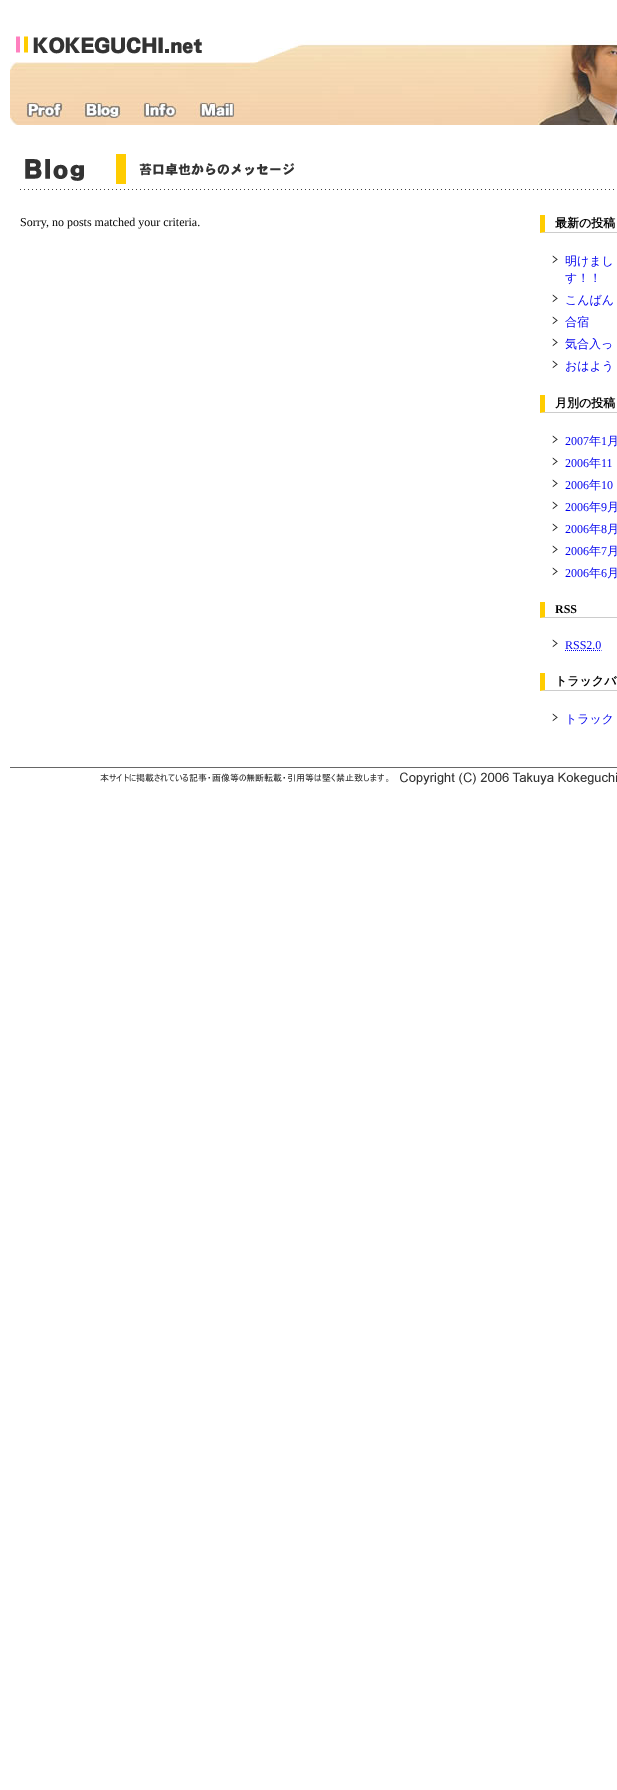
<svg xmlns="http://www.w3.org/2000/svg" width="617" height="1790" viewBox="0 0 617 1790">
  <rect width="100%" height="100%" fill="rgb(255,255,255)"/>
  <image x="258" y="40" width="359" height="22" href="pic1.png"/>
  <image x="16" y="36" width="186" height="18" href="pic2.png"/>
  <image x="10" y="62" width="607" height="63" href="pic3.png"/>
  <image x="20" y="154" width="594" height="36" href="pic4.png"/>
  <text x="20" y="226" font-family="Liberation Serif" font-size="12" fill="rgb(0,0,0)">Sorry, no posts matched your criteria.</text>
  <path d="M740 233H540L545 232H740Z" fill="rgb(204,204,204)"/>
  <path d="M540 233V215H545V232Z" fill="rgb(255,204,0)"/>
  <text x="555" y="227" font-family="WenQuanYi Zen Hei" font-size="12" font-weight="bold" fill="rgb(0,0,0)">最新の投稿</text>
  <image x="552" y="255" width="6" height="9" href="pic5.png"/>
  <g font-family="WenQuanYi Zen Hei" font-size="12" font-weight="500" fill="rgb(0,0,238)">
    <text>
      <tspan x="565" y="265">明けまし</tspan>
      <tspan x="565" y="282">す！！</tspan>
    </text>
  </g>
  <image x="552" y="294" width="6" height="9" href="pic5.png"/>
  <text x="565" y="304" font-family="WenQuanYi Zen Hei" font-size="12" font-weight="500" fill="rgb(0,0,238)">こんばん</text>
  <image x="552" y="316" width="6" height="9" href="pic5.png"/>
  <text x="565" y="326" font-family="WenQuanYi Zen Hei" font-size="12" font-weight="500" fill="rgb(0,0,238)">合宿</text>
  <image x="552" y="338" width="6" height="9" href="pic5.png"/>
  <text x="565" y="348" font-family="WenQuanYi Zen Hei" font-size="12" font-weight="500" fill="rgb(0,0,238)">気合入っ</text>
  <image x="552" y="360" width="6" height="9" href="pic5.png"/>
  <text x="565" y="370" font-family="WenQuanYi Zen Hei" font-size="12" font-weight="500" fill="rgb(0,0,238)">おはよう</text>
  <path d="M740 413H540L545 412H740Z" fill="rgb(204,204,204)"/>
  <path d="M540 413V395H545V412Z" fill="rgb(255,204,0)"/>
  <text x="555" y="407" font-family="WenQuanYi Zen Hei" font-size="12" font-weight="bold" fill="rgb(0,0,0)">月別の投稿</text>
  <image x="552" y="435" width="6" height="9" href="pic5.png"/>
  <text x="565" y="445" font-family="Liberation Serif" font-size="12" fill="rgb(0,0,238)">2007</text>
  <text x="589" y="445" font-family="WenQuanYi Zen Hei" font-size="12" font-weight="500" fill="rgb(0,0,238)">年</text>
  <text x="601" y="445" font-family="Liberation Serif" font-size="12" fill="rgb(0,0,238)">1</text>
  <text x="607" y="445" font-family="WenQuanYi Zen Hei" font-size="12" font-weight="500" fill="rgb(0,0,238)">月</text>
  <image x="552" y="457" width="6" height="9" href="pic5.png"/>
  <text x="565" y="467" font-family="Liberation Serif" font-size="12" fill="rgb(0,0,238)">2006</text>
  <text x="589" y="467" font-family="WenQuanYi Zen Hei" font-size="12" font-weight="500" fill="rgb(0,0,238)">年</text>
  <text x="601" y="467" font-family="Liberation Serif" font-size="12" fill="rgb(0,0,238)">11</text>
  <image x="552" y="479" width="6" height="9" href="pic5.png"/>
  <text x="565" y="489" font-family="Liberation Serif" font-size="12" fill="rgb(0,0,238)">2006</text>
  <text x="589" y="489" font-family="WenQuanYi Zen Hei" font-size="12" font-weight="500" fill="rgb(0,0,238)">年</text>
  <text x="601" y="489" font-family="Liberation Serif" font-size="12" fill="rgb(0,0,238)">10</text>
  <image x="552" y="501" width="6" height="9" href="pic5.png"/>
  <text x="565" y="511" font-family="Liberation Serif" font-size="12" fill="rgb(0,0,238)">2006</text>
  <text x="589" y="511" font-family="WenQuanYi Zen Hei" font-size="12" font-weight="500" fill="rgb(0,0,238)">年</text>
  <text x="601" y="511" font-family="Liberation Serif" font-size="12" fill="rgb(0,0,238)">9</text>
  <text x="607" y="511" font-family="WenQuanYi Zen Hei" font-size="12" font-weight="500" fill="rgb(0,0,238)">月</text>
  <image x="552" y="523" width="6" height="9" href="pic5.png"/>
  <text x="565" y="533" font-family="Liberation Serif" font-size="12" fill="rgb(0,0,238)">2006</text>
  <text x="589" y="533" font-family="WenQuanYi Zen Hei" font-size="12" font-weight="500" fill="rgb(0,0,238)">年</text>
  <text x="601" y="533" font-family="Liberation Serif" font-size="12" fill="rgb(0,0,238)">8</text>
  <text x="607" y="533" font-family="WenQuanYi Zen Hei" font-size="12" font-weight="500" fill="rgb(0,0,238)">月</text>
  <image x="552" y="545" width="6" height="9" href="pic5.png"/>
  <text x="565" y="555" font-family="Liberation Serif" font-size="12" fill="rgb(0,0,238)">2006</text>
  <text x="589" y="555" font-family="WenQuanYi Zen Hei" font-size="12" font-weight="500" fill="rgb(0,0,238)">年</text>
  <text x="601" y="555" font-family="Liberation Serif" font-size="12" fill="rgb(0,0,238)">7</text>
  <text x="607" y="555" font-family="WenQuanYi Zen Hei" font-size="12" font-weight="500" fill="rgb(0,0,238)">月</text>
  <image x="552" y="567" width="6" height="9" href="pic5.png"/>
  <text x="565" y="577" font-family="Liberation Serif" font-size="12" fill="rgb(0,0,238)">2006</text>
  <text x="589" y="577" font-family="WenQuanYi Zen Hei" font-size="12" font-weight="500" fill="rgb(0,0,238)">年</text>
  <text x="601" y="577" font-family="Liberation Serif" font-size="12" fill="rgb(0,0,238)">6</text>
  <text x="607" y="577" font-family="WenQuanYi Zen Hei" font-size="12" font-weight="500" fill="rgb(0,0,238)">月</text>
  <path d="M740 618H540L545 617H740Z" fill="rgb(204,204,204)"/>
  <path d="M540 618V602H545V617Z" fill="rgb(255,204,0)"/>
  <text x="555" y="613" font-family="Liberation Serif" font-size="12" font-weight="bold" fill="rgb(0,0,0)">RSS</text>
  <image x="552" y="639" width="6" height="9" href="pic5.png"/>
  <text x="565" y="649" font-family="Liberation Serif" font-size="12" fill="rgb(0,0,238)">RSS2.0</text>
  <path d="M565 650.5H601.5" fill="none" stroke="rgb(0,0,238)" stroke-dasharray="1 1"/>
  <path d="M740 691H540L545 690H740Z" fill="rgb(204,204,204)"/>
  <path d="M540 691V673H545V690Z" fill="rgb(255,204,0)"/>
  <text x="555" y="685" font-family="WenQuanYi Zen Hei" font-size="12" font-weight="bold" fill="rgb(0,0,0)">トラックバ</text>
  <image x="552" y="713" width="6" height="9" href="pic5.png"/>
  <text x="565" y="723" font-family="WenQuanYi Zen Hei" font-size="12" font-weight="500" fill="rgb(0,0,238)">トラック</text>
  <image x="10" y="767" width="607" height="18" href="pic6.png"/>
</svg>
